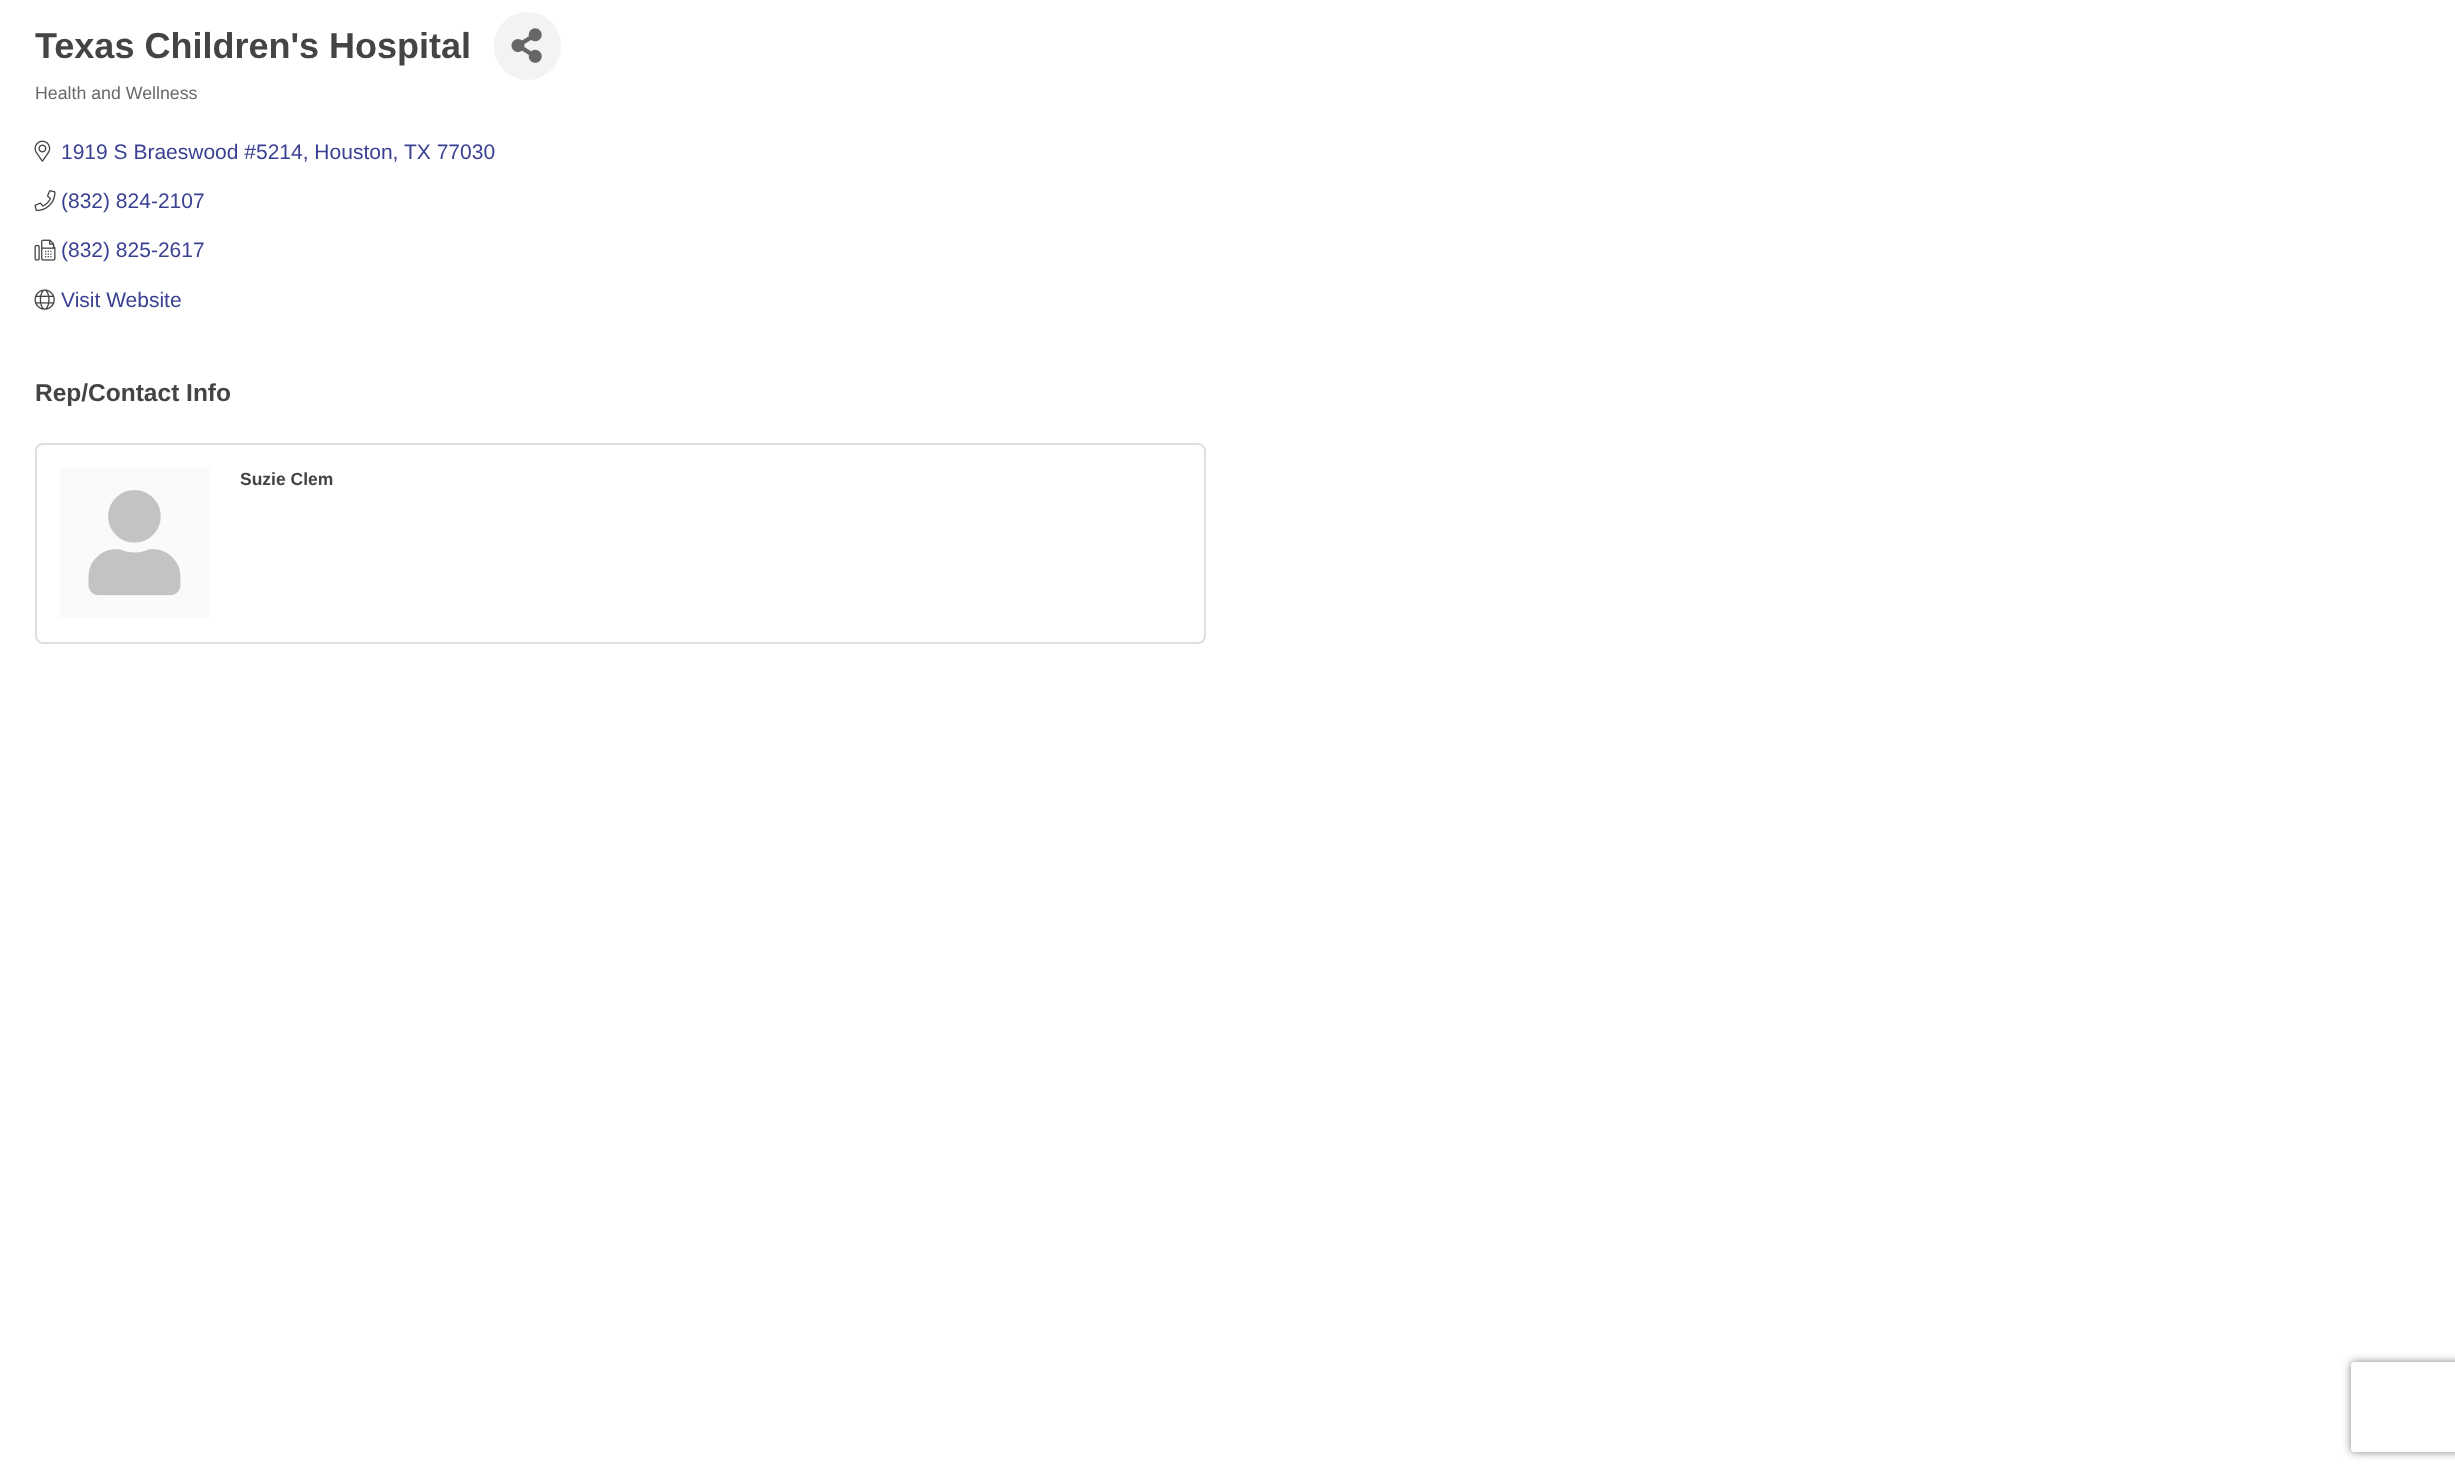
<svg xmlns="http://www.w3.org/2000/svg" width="2455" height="1473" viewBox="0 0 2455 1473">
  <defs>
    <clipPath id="clip1"><path d="M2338 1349H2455V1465H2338ZM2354 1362H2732C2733.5 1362 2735 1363.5 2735 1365V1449C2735 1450.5 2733.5 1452 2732 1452H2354C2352.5 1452 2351 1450.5 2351 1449V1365C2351 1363.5 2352.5 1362 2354 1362Z" clip-rule="evenodd"/></clipPath>
  </defs>
  <rect width="100%" height="100%" fill="rgb(255,255,255)"/>
  <text x="35" y="58" font-family="Liberation Sans" font-size="36" font-weight="bold" fill="rgb(68,68,68)">Texas Children's Hospital</text>
  <rect x="494" y="12" width="67" height="68" rx="33.5" fill="rgb(243,243,243)"/>
  <image x="511" y="28" width="31" height="35" href="pic1.png"/>
  <text x="35" y="99" font-family="Liberation Sans" font-size="17.75" fill="rgb(105,105,105)">Health and Wellness</text>
  <image x="34" y="140" width="17" height="22" href="pic2.png"/>
  <g font-family="Liberation Sans" font-size="21" fill="rgb(58,65,146)">
    <text x="61" y="159">1919 S Braeswood #5214, Houston,</text>
    <text x="404" y="159">TX 77030</text>
  </g>
  <image x="34" y="190" width="22" height="22" href="pic3.png"/>
  <text x="61" y="208" font-family="Liberation Sans" font-size="21" fill="rgb(58,65,146)">(832) 824-2107</text>
  <image x="34" y="239" width="22" height="22" href="pic4.png"/>
  <text x="61" y="257" font-family="Liberation Sans" font-size="21" fill="rgb(58,65,146)">(832) 825-2617</text>
  <image x="34" y="289" width="21" height="21" href="pic5.png"/>
  <text x="61" y="307" font-family="Liberation Sans" font-size="21" fill="rgb(58,65,146)">Visit Website</text>
  <text x="35" y="401" font-family="Liberation Sans" font-size="24.5" font-weight="bold" fill="rgb(68,68,68)">Rep/Contact Info</text>
  <rect x="36" y="444" width="1169" height="199" rx="7" fill="none" stroke="rgb(223,223,223)" stroke-width="2"/>
  <rect x="60" y="468" width="150" height="150" fill="rgb(250,250,250)"/>
  <image x="88" y="490" width="93" height="106" href="pic6.png"/>
  <text x="240" y="485" font-family="Liberation Sans" font-size="17.5" font-weight="bold" fill="rgb(68,68,68)">Suzie Clem</text>
  <g clip-path="url(#clip1)">
    <rect x="2351" y="1362" width="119" height="90" rx="3" fill="rgb(128,128,128)" filter="blur(4px)"/>
  </g>
</svg>
